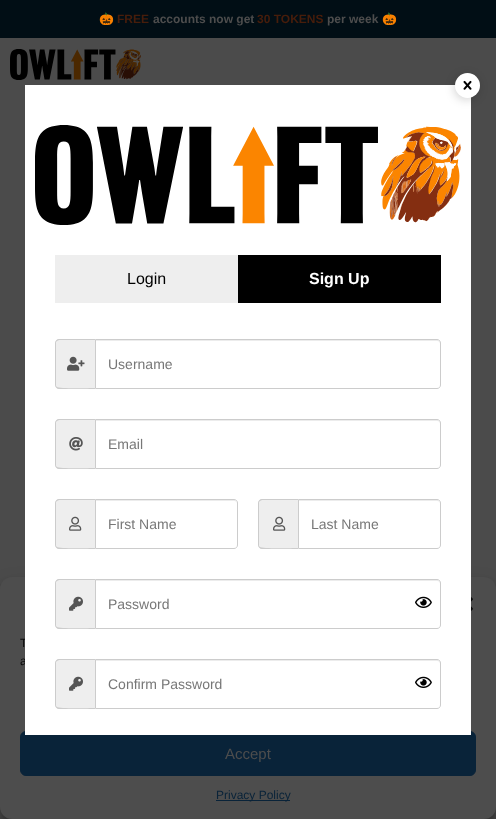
<svg xmlns="http://www.w3.org/2000/svg" width="496" height="819" viewBox="0 0 496 819">
  <rect width="100%" height="100%" fill="rgb(75,75,75)"/>
  <rect x="0" y="0" width="496" height="38" fill="rgb(1,14,21)"/>
  <text x="99" y="23" font-family="Noto Color Emoji" font-size="12" font-weight="bold" fill="rgb(77,77,77)">🎃</text>
  <text x="117" y="23" font-family="Liberation Sans" font-size="12" font-weight="bold" fill="rgb(71,29,11)">FREE</text>
  <text x="153" y="23" font-family="Liberation Sans" font-size="12" font-weight="bold" fill="rgb(77,77,77)">accounts now get</text>
  <text x="257" y="23" font-family="Liberation Sans" font-size="12" font-weight="bold" fill="rgb(71,29,11)">30 TOKENS</text>
  <text x="327" y="23" font-family="Liberation Sans" font-size="12" font-weight="bold" fill="rgb(77,77,77)">per week</text>
  <text x="382" y="23" font-family="Noto Color Emoji" font-size="12" font-weight="bold" fill="rgb(77,77,77)">🎃</text>
  <image x="10" y="49" width="131" height="31" href="pic1.png"/>
  <rect x="0" y="583" width="496" height="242" rx="12" fill="rgba(0,0,0,0.23)" filter="blur(3px)"/>
  <rect x="0" y="587" width="496" height="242" rx="12" fill="rgba(0,0,0,0.19)" filter="blur(10px)"/>
  <rect x="0" y="577" width="496" height="242" rx="12" fill="rgb(77,77,77)"/>
  <g font-family="Liberation Sans" font-size="12" fill="rgb(10,10,10)">
    <text>
      <tspan x="20" y="647">T</tspan>
      <tspan x="20" y="665">a</tspan>
    </text>
  </g>
  <rect x="20.5" y="731.5" width="455" height="44" rx="5.5" fill="rgb(9,35,57)" stroke="rgb(9,35,57)"/>
  <rect x="25" y="85" width="446" height="650" fill="rgb(255,255,255)"/>
  <rect x="454" y="75" width="25" height="25" rx="12.5" fill="rgba(0,0,0,0.17)" filter="blur(5px)"/>
  <circle cx="467.5" cy="85.5" r="12.5" fill="rgb(255,255,255)"/>
  <image x="463" y="80" width="9" height="10" href="pic2.png"/>
  <image x="35" y="125" width="426" height="100" href="pic3.png"/>
  <rect x="55" y="255" width="183" height="48" fill="rgb(238,238,238)"/>
  <text x="127" y="284" font-family="Liberation Sans" font-size="16" fill="rgb(0,0,0)">Login</text>
  <rect x="238" y="255" width="203" height="48" fill="rgb(0,0,0)"/>
  <text x="309" y="284" font-family="Liberation Sans" font-size="16" font-weight="bold" fill="rgb(255,255,255)">Sign Up</text>
  <path d="M59 339H95V389H59C57 389 55 387 55 385V343C55 341 57 339 59 339Z" fill="rgb(238,238,238)"/>
  <path d="M59 339H95V389H59C57 389 55 387 55 385V343C55 341 57 339 59 339ZM59 340H95V388C90 388 59 389 57 387L56 386V342L57 341Z" fill="rgb(204,204,204)" fill-rule="evenodd"/>
  <image x="67" y="356" width="18" height="15" href="pic4.png"/>
  <path d="M96 341H437C439 341 440 342 440 344V343C440 341 439 340 437 340H96Z" fill="rgb(236,236,236)"/>
  <path d="M95.5 339.5H437C439 339.5 440.5 341 440.5 343V385C440.5 387 439 388.5 437 388.5H95.5Z" fill="none" stroke="rgb(204,204,204)"/>
  <text x="108" y="369" font-family="Liberation Sans" font-size="14" fill="rgb(119,119,119)">Username</text>
  <path d="M59 419H95V469H59C57 469 55 467 55 465V423C55 421 57 419 59 419Z" fill="rgb(238,238,238)"/>
  <path d="M59 419H95V469H59C57 469 55 467 55 465V423C55 421 57 419 59 419ZM59 420H95V468C90 468 59 469 57 467L56 466V422L57 421Z" fill="rgb(204,204,204)" fill-rule="evenodd"/>
  <image x="69" y="437" width="14" height="14" href="pic5.png"/>
  <path d="M96 421H437C439 421 440 422 440 424V423C440 421 439 420 437 420H96Z" fill="rgb(236,236,236)"/>
  <path d="M95.5 419.5H437C439 419.5 440.5 421 440.5 423V465C440.5 467 439 468.5 437 468.5H95.5Z" fill="none" stroke="rgb(204,204,204)"/>
  <text x="108" y="449" font-family="Liberation Sans" font-size="14" fill="rgb(119,119,119)">Email</text>
  <path d="M59 499H95V549H59C57 549 55 547 55 545V503C55 501 57 499 59 499Z" fill="rgb(238,238,238)"/>
  <path d="M59 499H95V549H59C57 549 55 547 55 545V503C55 501 57 499 59 499ZM59 500H95V548C90 548 59 549 57 547L56 546V502L57 501Z" fill="rgb(204,204,204)" fill-rule="evenodd"/>
  <image x="69" y="516" width="13" height="15" href="pic6.png"/>
  <path d="M96 501H234C236 501 237 502 237 504C237 502 236 500 234 500H96Z" fill="rgb(236,236,236)"/>
  <path d="M95.5 499.5H234C236 499.5 237.5 501 237.5 503V545C237.5 547 236 548.5 234 548.5H95.5Z" fill="none" stroke="rgb(204,204,204)"/>
  <text x="108" y="529" font-family="Liberation Sans" font-size="14" fill="rgb(119,119,119)">First Name</text>
  <path d="M262 499H298V549H262C260 549 258 547 258 545V503C258 501 260 499 262 499Z" fill="rgb(238,238,238)"/>
  <path d="M262 499H298V549H262C260 549 258 547 258 545V503C258 501 260 499 262 499ZM262 500H298V548C293 548 262 549 260 547L259 546V502L260 501Z" fill="rgb(204,204,204)" fill-rule="evenodd"/>
  <image x="273" y="516" width="13" height="15" href="pic6.png"/>
  <path d="M299 501H437C439 501 440 502 440 504C440 502 439 500 437 500H299Z" fill="rgb(236,236,236)"/>
  <path d="M298.5 499.5H437C439 499.5 440.5 501 440.5 503V545C440.5 547 439 548.5 437 548.5H298.5Z" fill="none" stroke="rgb(204,204,204)"/>
  <text x="311" y="529" font-family="Liberation Sans" font-size="14" fill="rgb(119,119,119)">Last Name</text>
  <path d="M59 579H95V629H59C57 629 55 627 55 625V583C55 581 57 579 59 579Z" fill="rgb(238,238,238)"/>
  <path d="M59 579H95V629H59C57 629 55 627 55 625V583C55 581 57 579 59 579ZM59 580H95V628C90 628 59 629 57 627L56 626V582L57 581Z" fill="rgb(204,204,204)" fill-rule="evenodd"/>
  <image x="69" y="596" width="14" height="15" href="pic7.png"/>
  <path d="M96 581H437C439 581 440 582 440 584V583C440 581 439 580 437 580H96Z" fill="rgb(236,236,236)"/>
  <path d="M95.5 579.5H437C439 579.5 440.5 581 440.5 583V625C440.5 627 439 628.5 437 628.5H95.5Z" fill="none" stroke="rgb(204,204,204)"/>
  <text x="108" y="609" font-family="Liberation Sans" font-size="14" fill="rgb(119,119,119)">Password</text>
  <image x="415" y="596" width="17" height="12" href="pic8.png"/>
  <path d="M59 659H95V709H59C57 709 55 707 55 705V663C55 661 57 659 59 659Z" fill="rgb(238,238,238)"/>
  <path d="M59 659H95V709H59C57 709 55 707 55 705V663C55 661 57 659 59 659ZM59 660H95V708C90 708 59 709 57 707L56 706V662L57 661Z" fill="rgb(204,204,204)" fill-rule="evenodd"/>
  <image x="69" y="676" width="14" height="15" href="pic7.png"/>
  <path d="M96 661H437C439 661 440 662 440 664V663C440 661 439 660 437 660H96Z" fill="rgb(236,236,236)"/>
  <path d="M95.5 659.5H437C439 659.5 440.5 661 440.5 663V705C440.5 707 439 708.5 437 708.5H95.5Z" fill="none" stroke="rgb(204,204,204)"/>
  <text x="108" y="689" font-family="Liberation Sans" font-size="14" fill="rgb(119,119,119)">Confirm Password</text>
  <image x="415" y="676" width="17" height="12" href="pic8.png"/>
  <image x="471" y="597" width="2" height="14" href="pic9.png"/>
  <text x="225" y="759" font-family="Liberation Sans" font-size="15" fill="rgb(77,77,77)">Accept</text>
  <rect x="216" y="800" width="74" height="1" fill="rgb(9,35,57)"/>
  <text x="216" y="799" font-family="Liberation Sans" font-size="12" fill="rgb(9,35,57)">Privacy Policy</text>
</svg>
